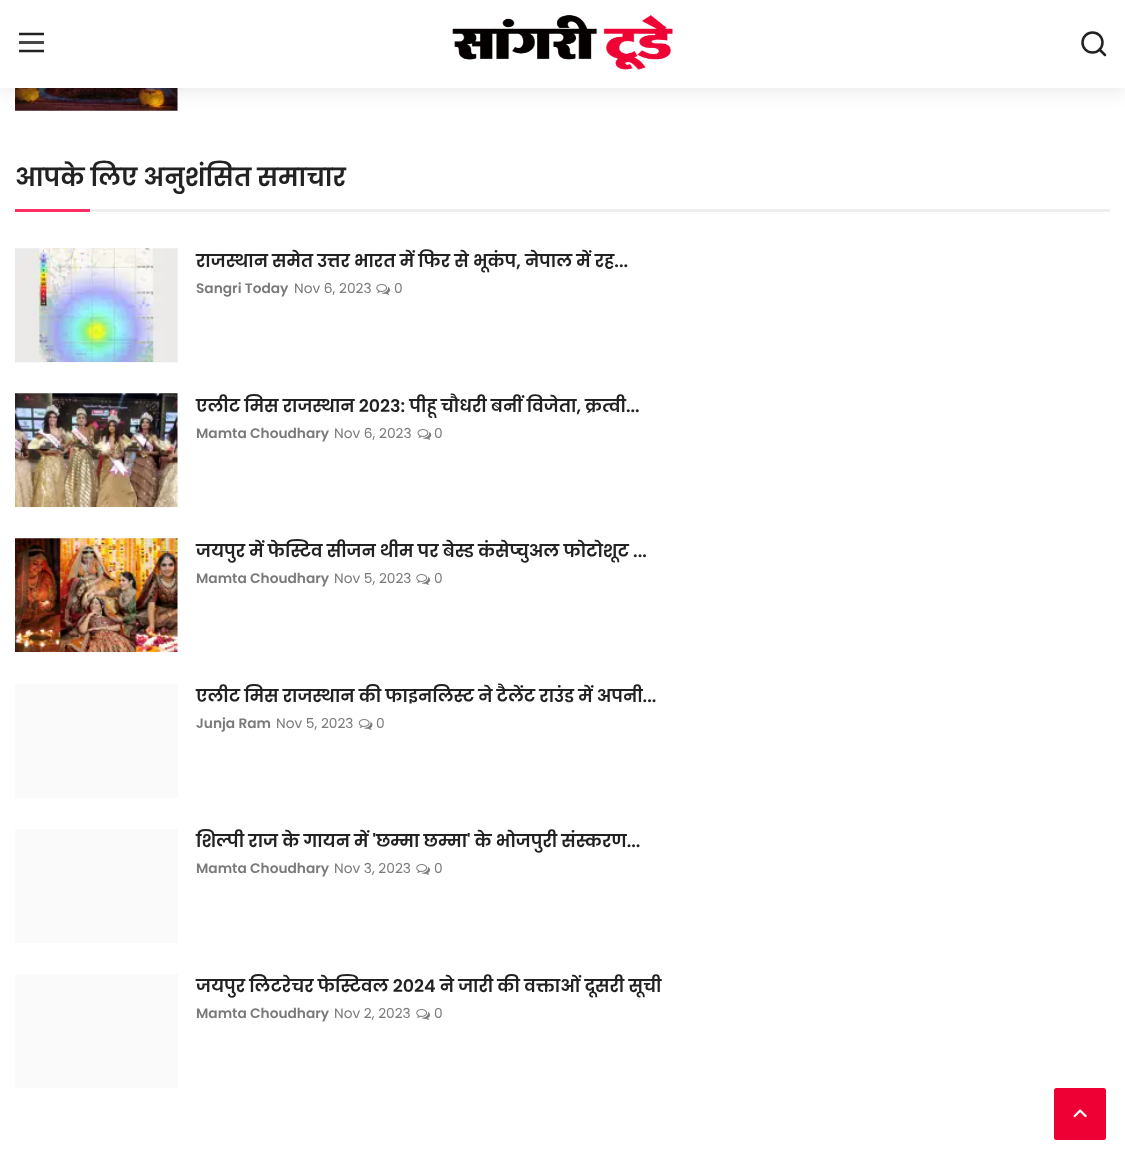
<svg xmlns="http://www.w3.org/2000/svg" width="1125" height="1164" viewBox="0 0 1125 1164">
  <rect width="100%" height="100%" fill="rgb(255,255,255)"/>
  <rect x="15" y="88" width="163" height="23" fill="rgb(250,250,250)"/>
  <image x="15" y="88" width="163" height="23" href="pic2.png"/>
  <rect x="0" y="3" width="1125" height="87" fill="rgba(0,0,0,0.1)" filter="blur(9.5px)"/>
  <rect x="0" y="0" width="1125" height="88" fill="rgb(255,255,255)"/>
  <path d="M19 34H44" fill="none" stroke="rgb(34,34,34)" stroke-width="2.5"/>
  <rect x="19" y="41" width="25" height="3" fill="rgb(71,71,71)"/>
  <path d="M19 51H44" fill="none" stroke="rgb(34,34,34)" stroke-width="2.5"/>
  <image x="452" y="15" width="221" height="55" href="pic1.png"/>
  <circle cx="1092.5" cy="42.5" r="10" fill="none" stroke="rgb(34,34,34)" stroke-width="2.5"/>
  <path d="M1105 55L1099.5 49.5" fill="none" stroke="rgb(34,34,34)" stroke-width="2.5" stroke-linecap="round" stroke-linejoin="round"/>
  <rect x="90" y="209" width="1020" height="3" fill="rgb(238,238,238)"/>
  <text x="15" y="186" font-family="Poppins" font-size="25" font-weight="600" fill="rgb(34,34,34)">आपके लिए अनुशंसित समाचार</text>
  <rect x="15" y="209" width="75" height="3" fill="rgb(254,45,101)"/>
  <rect x="15" y="249" width="163" height="114" fill="rgb(250,250,250)"/>
  <image x="15" y="248" width="163" height="114" href="pic3.png"/>
  <text x="196" y="267" font-family="Poppins" font-size="17.5" font-weight="600" fill="rgb(34,34,34)">राजस्थान समेत उत्तर भारत में फिर से भूकंप, नेपाल में रह...</text>
  <text x="196" y="293" font-family="Poppins" font-size="13.75" font-weight="600" fill="rgb(122,122,122)">Sangri Today</text>
  <text x="294" y="293" font-family="Poppins" font-size="13.75" fill="rgb(122,122,122)">Nov 6, 2023</text>
  <image x="376" y="284" width="14" height="11" href="pic4.png"/>
  <text x="394" y="293" font-family="Poppins" font-size="13.75" fill="rgb(122,122,122)">0</text>
  <rect x="15" y="394" width="163" height="114" fill="rgb(250,250,250)"/>
  <image x="15" y="393" width="163" height="114" href="pic5.png"/>
  <text x="196" y="412" font-family="Poppins" font-size="17.5" font-weight="600" fill="rgb(34,34,34)">एलीट मिस राजस्थान 2023: पीहू चौधरी बनीं विजेता, क्रत्वी...</text>
  <text x="196" y="438" font-family="Poppins" font-size="13.75" font-weight="600" fill="rgb(122,122,122)">Mamta Choudhary</text>
  <text x="334" y="438" font-family="Poppins" font-size="13.75" fill="rgb(122,122,122)">Nov 6, 2023</text>
  <image x="417" y="429" width="15" height="11" href="pic6.png"/>
  <text x="434" y="438" font-family="Poppins" font-size="13.75" fill="rgb(122,122,122)">0</text>
  <rect x="15" y="539" width="163" height="114" fill="rgb(250,250,250)"/>
  <image x="15" y="538" width="163" height="114" href="pic7.png"/>
  <text x="196" y="557" font-family="Poppins" font-size="17.5" font-weight="600" fill="rgb(34,34,34)">जयपुर में फेस्टिव सीजन थीम पर बेस्ड कंसेप्चुअल फोटोशूट ...</text>
  <text x="196" y="583" font-family="Poppins" font-size="13.75" font-weight="600" fill="rgb(122,122,122)">Mamta Choudhary</text>
  <text x="334" y="583" font-family="Poppins" font-size="13.75" fill="rgb(122,122,122)">Nov 5, 2023</text>
  <image x="416" y="574" width="14" height="11" href="pic4.png"/>
  <text x="434" y="583" font-family="Poppins" font-size="13.75" fill="rgb(122,122,122)">0</text>
  <rect x="15" y="684" width="163" height="114" fill="rgb(250,250,250)"/>
  <text x="196" y="702" font-family="Poppins" font-size="17.5" font-weight="600" fill="rgb(34,34,34)">एलीट मिस राजस्थान की फाइनलिस्ट ने टैलेंट राउंड में अपनी...</text>
  <text x="196" y="728" font-family="Poppins" font-size="13.75" font-weight="600" fill="rgb(122,122,122)">Junja Ram</text>
  <text x="276" y="728" font-family="Poppins" font-size="13.75" fill="rgb(122,122,122)">Nov 5, 2023</text>
  <image x="358" y="719" width="15" height="11" href="pic8.png"/>
  <text x="376" y="728" font-family="Poppins" font-size="13.75" fill="rgb(122,122,122)">0</text>
  <rect x="15" y="829" width="163" height="114" fill="rgb(250,250,250)"/>
  <text x="196" y="847" font-family="Poppins" font-size="17.5" font-weight="600" fill="rgb(34,34,34)">शिल्पी राज के गायन में 'छम्मा छम्मा' के भोजपुरी संस्करण...</text>
  <text x="196" y="873" font-family="Poppins" font-size="13.75" font-weight="600" fill="rgb(122,122,122)">Mamta Choudhary</text>
  <text x="334" y="873" font-family="Poppins" font-size="13.75" fill="rgb(122,122,122)">Nov 3, 2023</text>
  <image x="416" y="864" width="14" height="11" href="pic4.png"/>
  <text x="434" y="873" font-family="Poppins" font-size="13.75" fill="rgb(122,122,122)">0</text>
  <rect x="15" y="974" width="163" height="114" fill="rgb(250,250,250)"/>
  <text x="196" y="992" font-family="Poppins" font-size="17.5" font-weight="600" fill="rgb(34,34,34)">जयपुर लिटरेचर फेस्टिवल 2024 ने जारी की वक्ताओं दूसरी सूची</text>
  <text x="196" y="1018" font-family="Poppins" font-size="13.75" font-weight="600" fill="rgb(122,122,122)">Mamta Choudhary</text>
  <text x="334" y="1018" font-family="Poppins" font-size="13.75" fill="rgb(122,122,122)">Nov 2, 2023</text>
  <image x="416" y="1009" width="14" height="11" href="pic4.png"/>
  <text x="434" y="1018" font-family="Poppins" font-size="13.75" fill="rgb(122,122,122)">0</text>
  <rect x="1054" y="1088" width="52" height="52" rx="2.5" fill="rgb(238,0,52)"/>
  <image x="1073" y="1109" width="14" height="9" href="pic9.png"/>
</svg>
